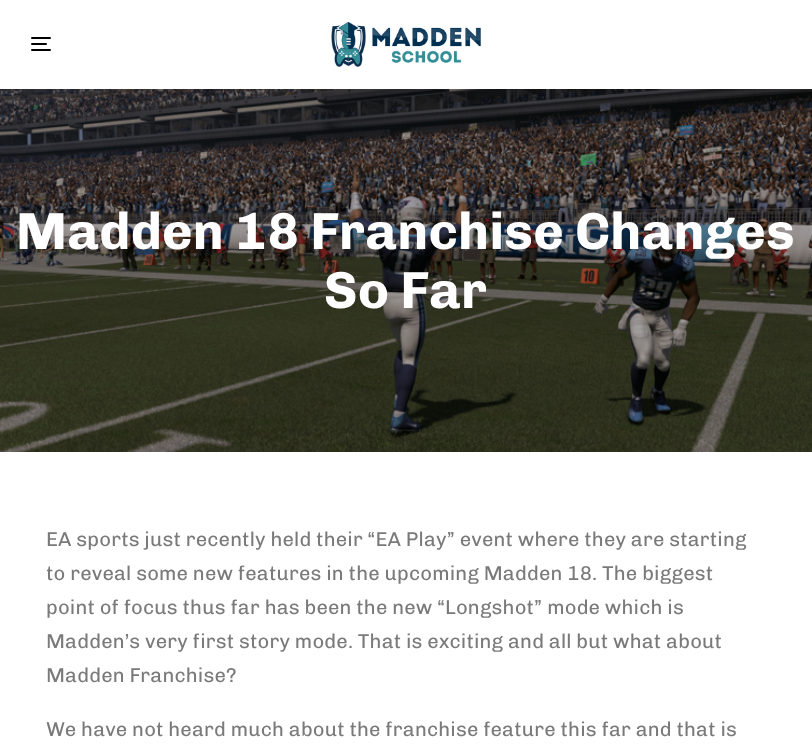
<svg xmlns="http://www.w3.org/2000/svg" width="812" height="753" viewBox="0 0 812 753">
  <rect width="100%" height="100%" fill="rgb(255,255,255)"/>
  <rect x="31" y="37" width="20" height="2" rx="1" fill="rgb(0,0,0)"/>
  <rect x="31" y="43" width="16" height="2" rx="1" fill="rgb(0,0,0)"/>
  <rect x="31" y="49" width="20" height="2" rx="1" fill="rgb(0,0,0)"/>
  <image x="331" y="22" width="150" height="45" href="pic1.png"/>
  <image x="0" y="89" width="812" height="363" href="pic2.png"/>
  <g font-family="Chivo" font-size="52" font-weight="bold" letter-spacing="0.15" fill="rgb(255,255,255)">
    <text x="16" y="249">Madden 18 Franchise Changes</text>
    <text x="324" y="308">So Far</text>
  </g>
  <g font-family="Chivo" font-size="20" letter-spacing="0.15" fill="rgb(122,122,122)">
    <text>
      <tspan x="46" y="546">EA sports just recently held their “EA Play” event where they are starting</tspan>
      <tspan x="46" y="580">to reveal some new features in the upcoming Madden 18. The biggest</tspan>
      <tspan x="46" y="614">point of focus thus far has been the new “Longshot” mode which is</tspan>
      <tspan x="46" y="648">Madden’s very first story mode. That is exciting and all but what about</tspan>
      <tspan x="46" y="682">Madden Franchise?</tspan>
    </text>
    <text x="46" y="736">We have not heard much about the franchise feature this far and that is</text>
  </g>
</svg>
